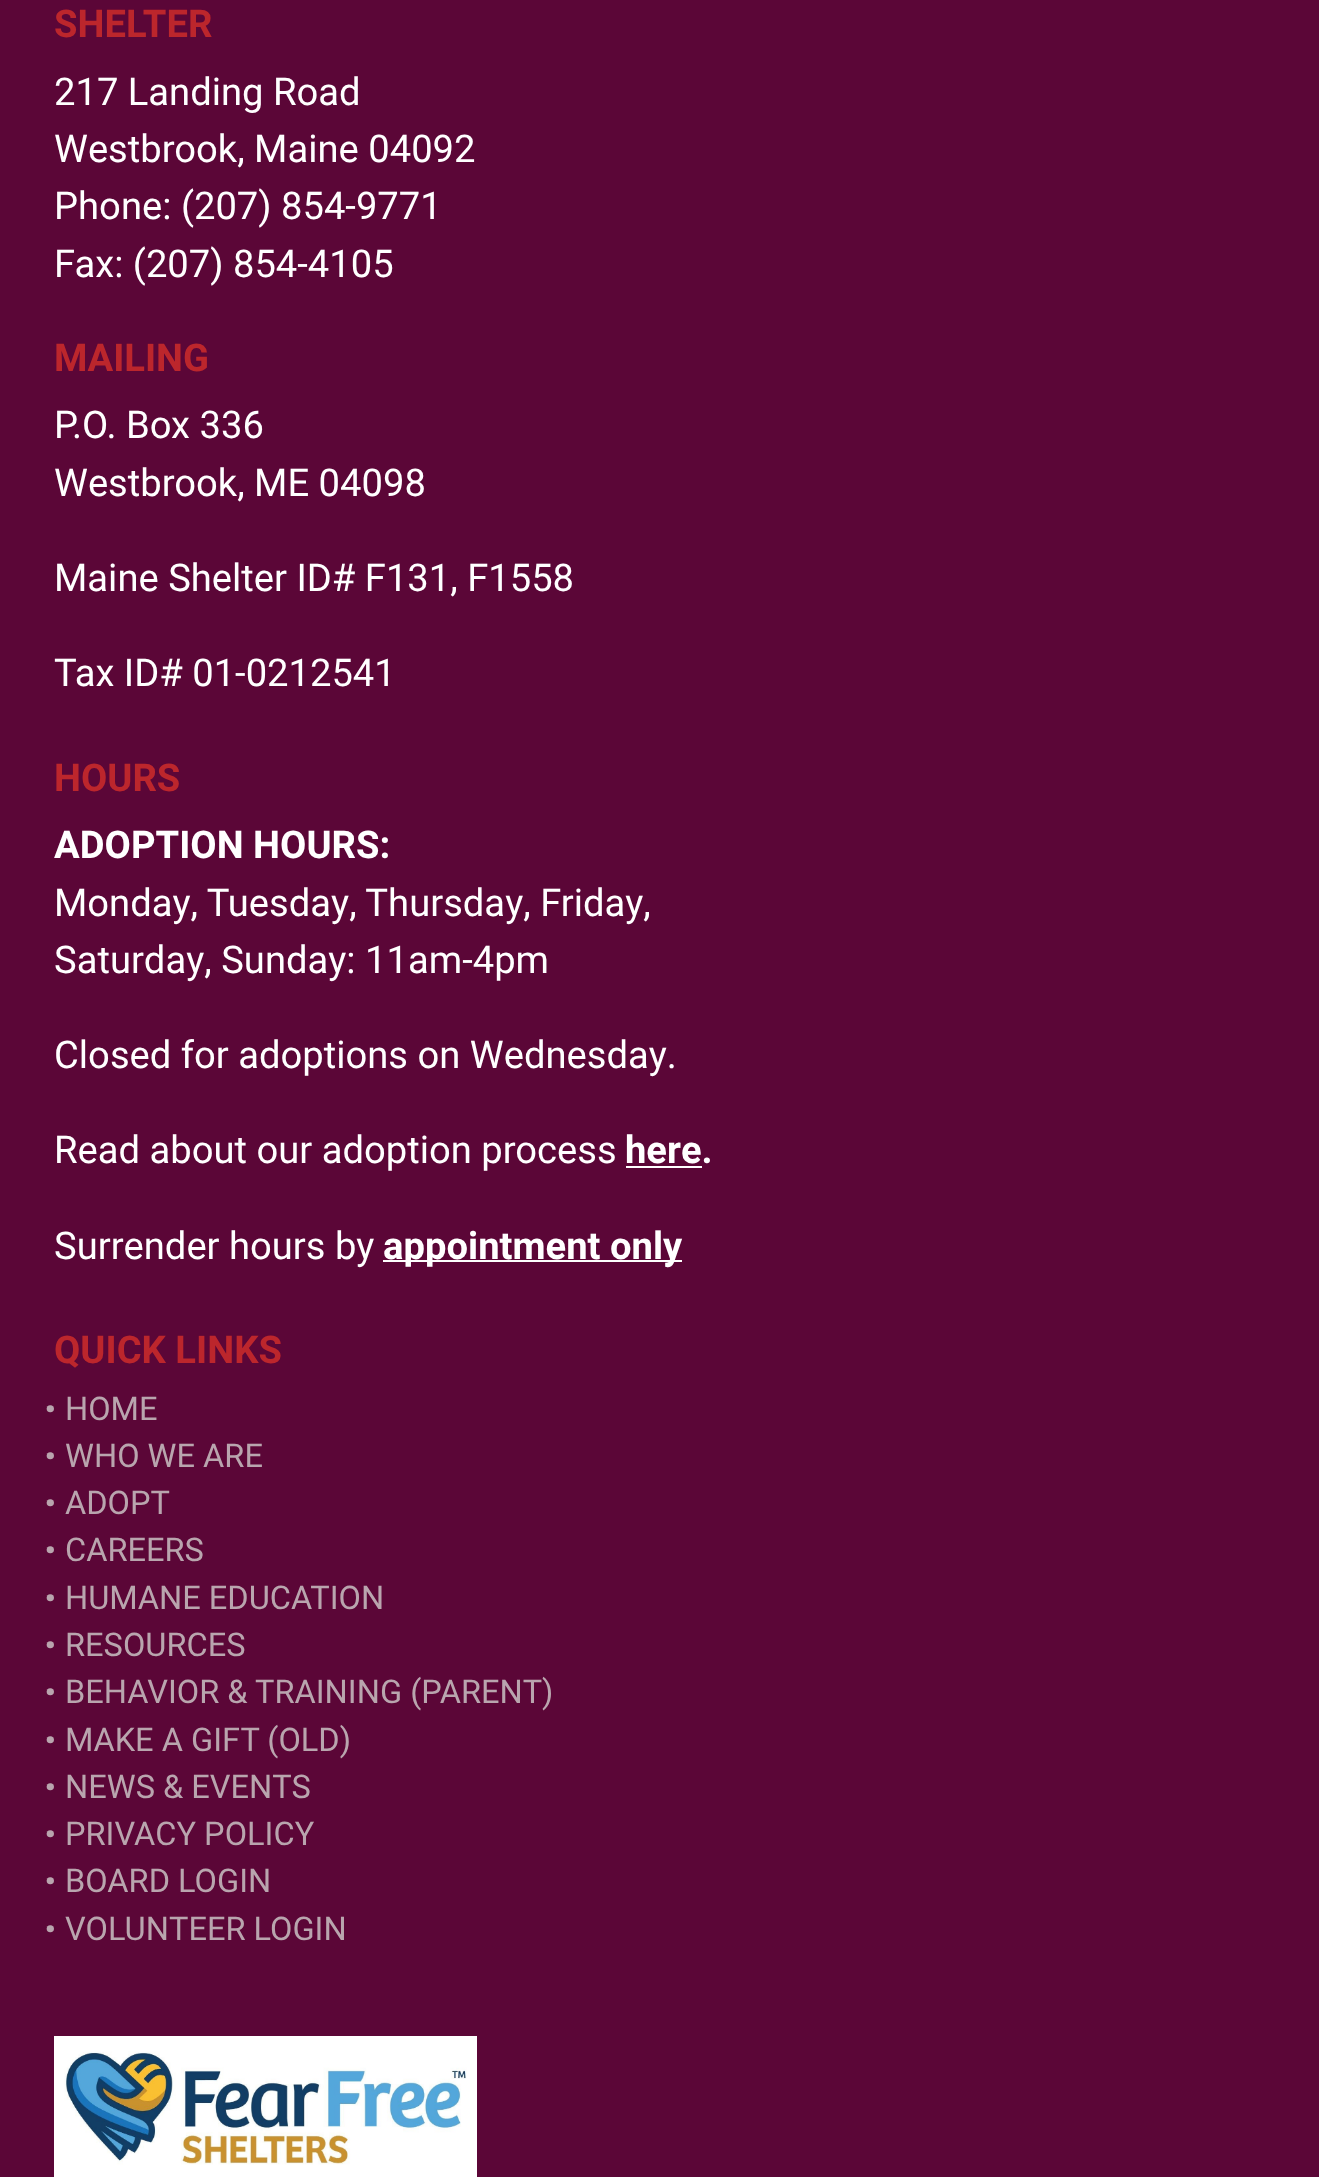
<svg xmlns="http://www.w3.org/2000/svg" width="1319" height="2177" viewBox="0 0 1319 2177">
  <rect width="100%" height="100%" fill="rgb(91,6,55)"/>
  <text x="54" y="37" font-family="Roboto" font-size="38.2" font-weight="bold" fill="rgb(188,38,44)">SHELTER</text>
  <g font-family="Roboto" font-size="38.2" fill="rgb(255,255,255)">
    <text>
      <tspan x="54" y="105">217 Landing Road</tspan>
      <tspan x="54" y="162">Westbrook, Maine 04092</tspan>
      <tspan x="54" y="219">Phone: (207) 854-9771</tspan>
      <tspan x="54" y="277">Fax: (207) 854-4105</tspan>
    </text>
  </g>
  <text x="54" y="371" font-family="Roboto" font-size="38.2" font-weight="bold" fill="rgb(188,38,44)">MAILING</text>
  <g font-family="Roboto" font-size="38.2" fill="rgb(255,255,255)">
    <text>
      <tspan x="54" y="438">P.O. Box 336</tspan>
      <tspan x="54" y="496">Westbrook, ME 04098</tspan>
    </text>
    <text x="54" y="591">Maine Shelter ID# F131, F1558</text>
    <text x="54" y="686">Tax ID# 01-0212541</text>
  </g>
  <text x="54" y="791" font-family="Roboto" font-size="38.2" font-weight="bold" fill="rgb(188,38,44)">HOURS</text>
  <text x="54" y="858" font-family="Roboto" font-size="38.2" font-weight="bold" fill="rgb(255,255,255)">ADOPTION HOURS:</text>
  <g font-family="Roboto" font-size="38.2" fill="rgb(255,255,255)">
    <text>
      <tspan x="54" y="916">Monday, Tuesday, Thursday, Friday,</tspan>
      <tspan x="54" y="973">Saturday, Sunday: 11am-4pm</tspan>
    </text>
    <text x="54" y="1068">Closed for adoptions on Wednesday.</text>
    <text x="54" y="1163">Read about our adoption process</text>
  </g>
  <text x="625" y="1163" font-family="Roboto" font-size="38.2" font-weight="bold" fill="rgb(255,255,255)">here.</text>
  <rect x="626" y="1166" width="76" height="2" fill="rgb(255,255,255)"/>
  <text x="54" y="1259" font-family="Roboto" font-size="38.2" fill="rgb(255,255,255)">Surrender hours by</text>
  <rect x="383" y="1260" width="299" height="2" fill="rgb(255,255,255)"/>
  <text x="383" y="1259" font-family="Roboto" font-size="38.2" font-weight="bold" fill="rgb(255,255,255)">appointment only</text>
  <text x="54" y="1363" font-family="Roboto" font-size="38.2" font-weight="bold" fill="rgb(188,38,44)">QUICK LINKS</text>
  <text x="42" y="1432" font-family="Roboto" font-size="65" fill="rgb(185,165,174)">·</text>
  <text x="65" y="1420" font-family="Roboto" font-size="32.6" fill="rgb(185,165,174)">HOME</text>
  <text x="42" y="1479" font-family="Roboto" font-size="65" fill="rgb(185,165,174)">·</text>
  <text x="65" y="1467" font-family="Roboto" font-size="32.6" fill="rgb(185,165,174)">WHO WE ARE</text>
  <text x="42" y="1526" font-family="Roboto" font-size="65" fill="rgb(185,165,174)">·</text>
  <text x="65" y="1514" font-family="Roboto" font-size="32.6" fill="rgb(185,165,174)">ADOPT</text>
  <text x="42" y="1573" font-family="Roboto" font-size="65" fill="rgb(185,165,174)">·</text>
  <text x="65" y="1561" font-family="Roboto" font-size="32.6" fill="rgb(185,165,174)">CAREERS</text>
  <text x="42" y="1621" font-family="Roboto" font-size="65" fill="rgb(185,165,174)">·</text>
  <text x="65" y="1609" font-family="Roboto" font-size="32.6" fill="rgb(185,165,174)">HUMANE EDUCATION</text>
  <text x="42" y="1668" font-family="Roboto" font-size="65" fill="rgb(185,165,174)">·</text>
  <text x="65" y="1656" font-family="Roboto" font-size="32.6" fill="rgb(185,165,174)">RESOURCES</text>
  <text x="42" y="1715" font-family="Roboto" font-size="65" fill="rgb(185,165,174)">·</text>
  <text x="65" y="1703" font-family="Roboto" font-size="32.6" fill="rgb(185,165,174)">BEHAVIOR &amp; TRAINING (PARENT)</text>
  <text x="42" y="1763" font-family="Roboto" font-size="65" fill="rgb(185,165,174)">·</text>
  <text x="65" y="1751" font-family="Roboto" font-size="32.6" fill="rgb(185,165,174)">MAKE A GIFT (OLD)</text>
  <text x="42" y="1810" font-family="Roboto" font-size="65" fill="rgb(185,165,174)">·</text>
  <text x="65" y="1798" font-family="Roboto" font-size="32.6" fill="rgb(185,165,174)">NEWS &amp; EVENTS</text>
  <text x="42" y="1857" font-family="Roboto" font-size="65" fill="rgb(185,165,174)">·</text>
  <text x="65" y="1845" font-family="Roboto" font-size="32.6" fill="rgb(185,165,174)">PRIVACY POLICY</text>
  <text x="42" y="1904" font-family="Roboto" font-size="65" fill="rgb(185,165,174)">·</text>
  <text x="65" y="1892" font-family="Roboto" font-size="32.6" fill="rgb(185,165,174)">BOARD LOGIN</text>
  <text x="42" y="1952" font-family="Roboto" font-size="65" fill="rgb(185,165,174)">·</text>
  <text x="65" y="1940" font-family="Roboto" font-size="32.6" fill="rgb(185,165,174)">VOLUNTEER LOGIN</text>
  <image x="54" y="2036" width="423" height="141" href="pic1.png"/>
</svg>
